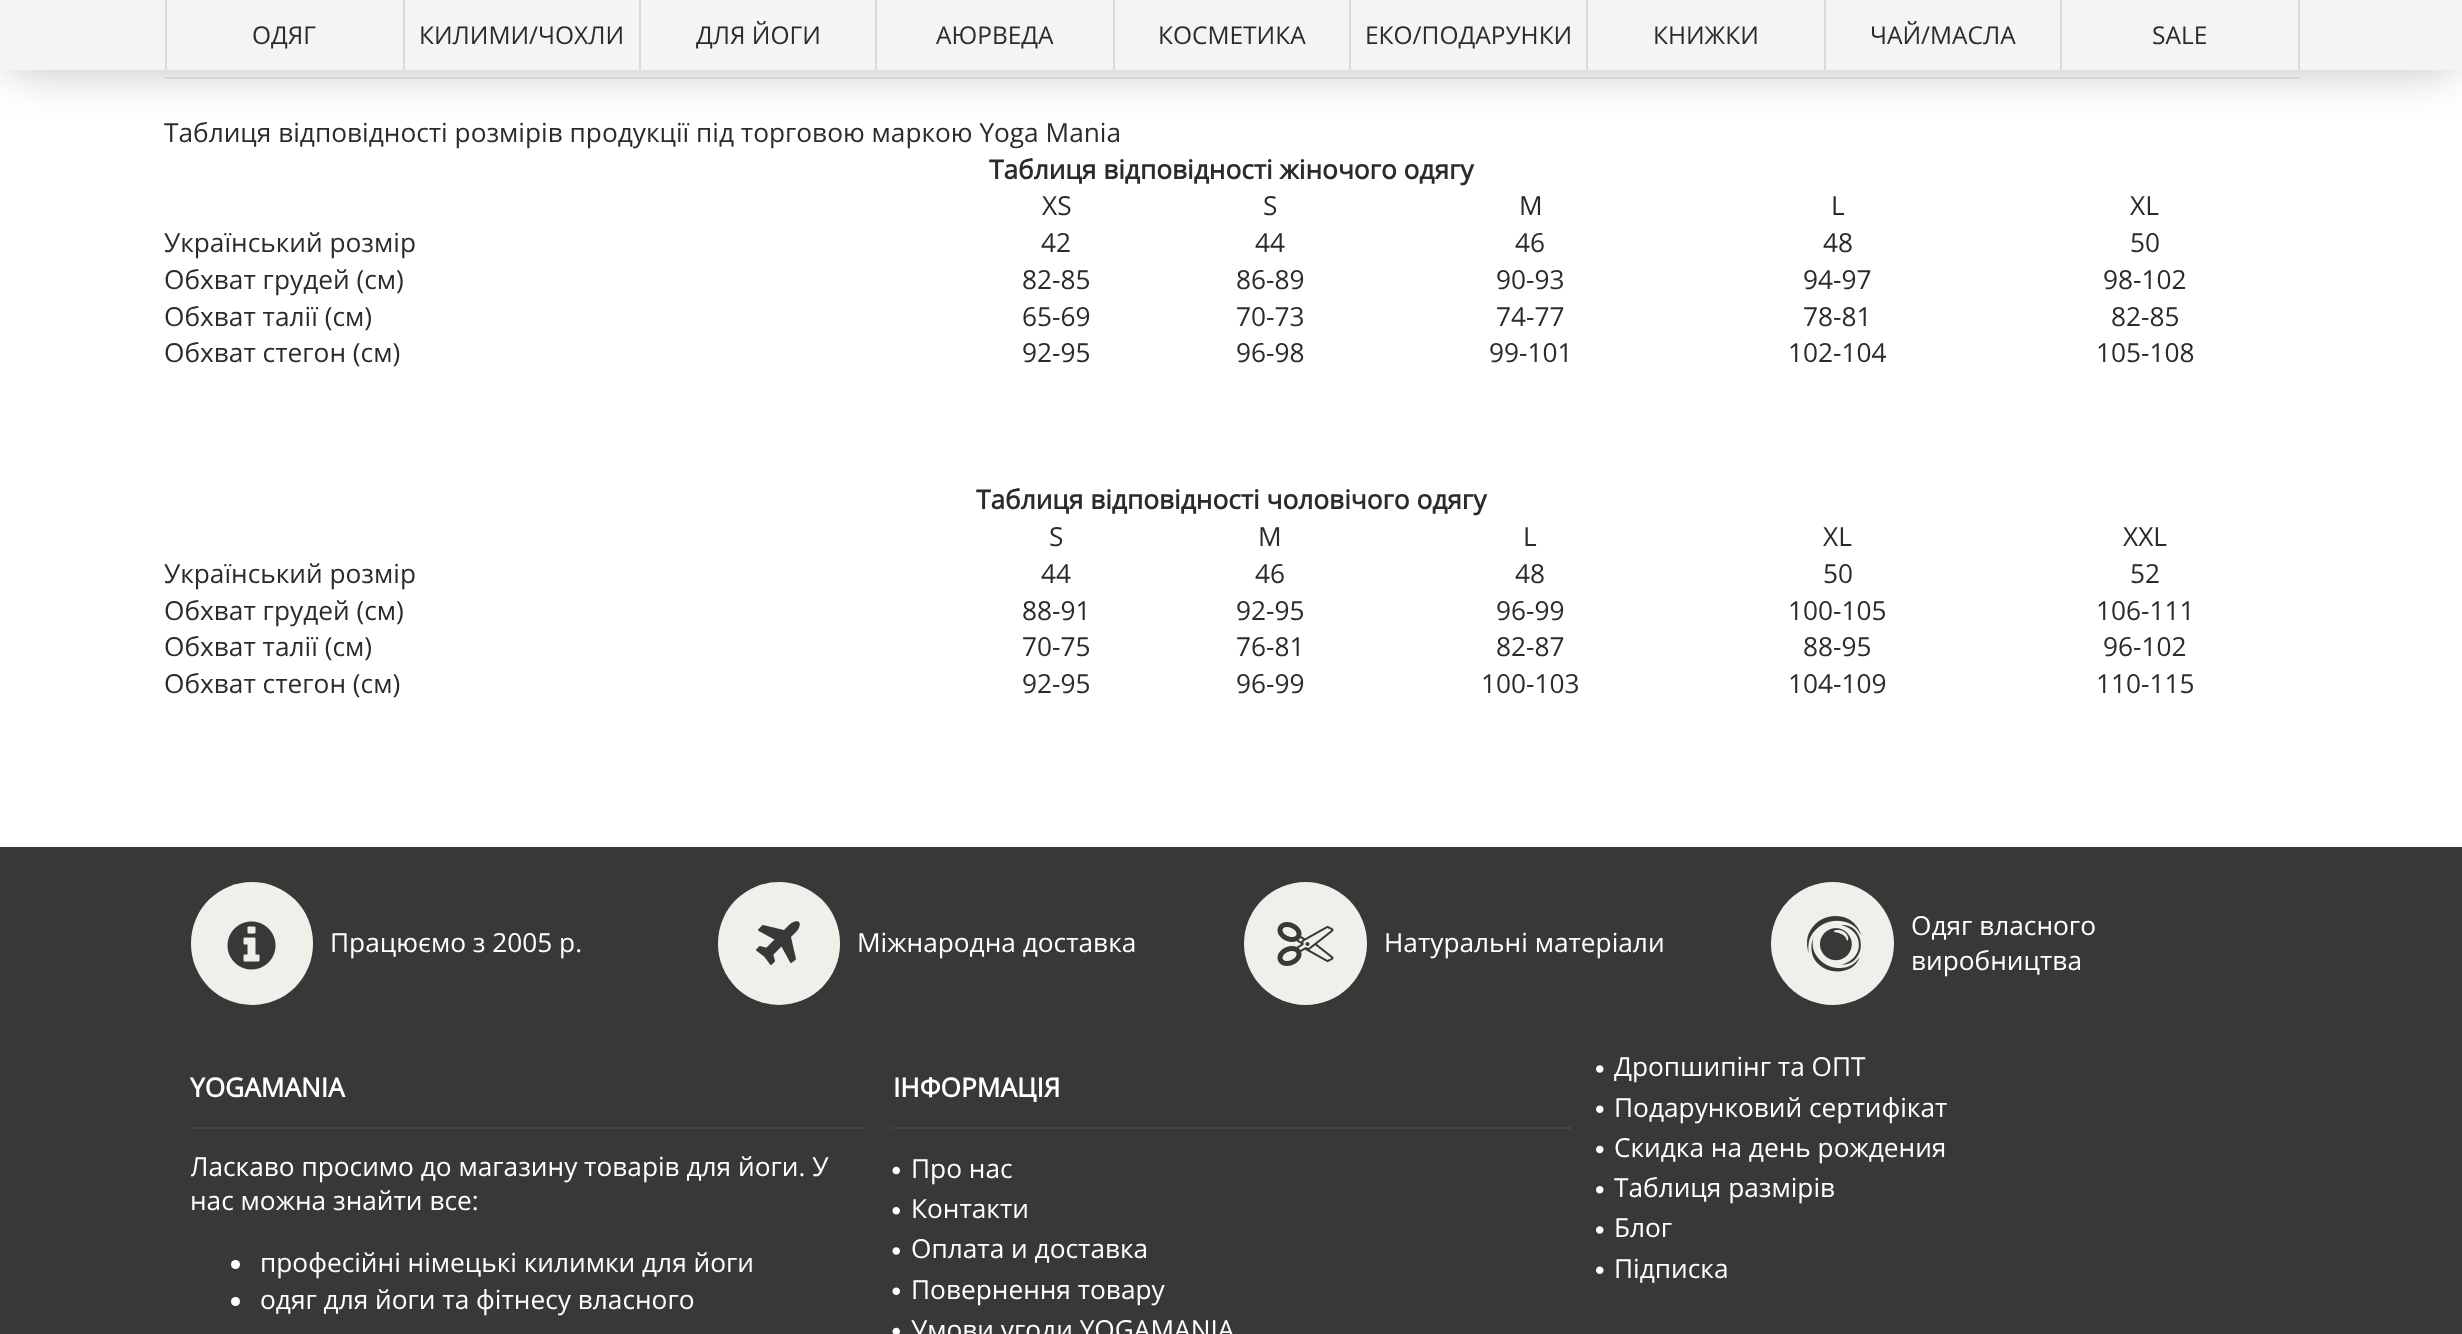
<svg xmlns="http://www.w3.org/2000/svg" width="2462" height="1334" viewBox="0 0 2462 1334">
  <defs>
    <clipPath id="clip1"><rect x="191" y="1150" width="675" height="68"/></clipPath>
  </defs>
  <rect width="100%" height="100%" fill="rgb(255,255,255)"/>
  <rect x="165" y="77" width="2135" height="2" fill="rgb(238,238,238)"/>
  <rect x="9" y="11" width="2445" height="52" fill="rgba(0,0,0,0.33)" filter="blur(26px)"/>
  <rect x="0" y="0" width="2462" height="70" fill="rgb(244,244,244)"/>
  <rect x="2298" y="0" width="2" height="70" fill="rgb(217,217,217)"/>
  <rect x="165" y="0" width="2" height="70" fill="rgb(217,217,217)"/>
  <text x="252" y="44" font-family="Open Sans" font-size="24.5" fill="rgb(42,43,46)">ОДЯГ</text>
  <rect x="403" y="0" width="2" height="70" fill="rgb(217,217,217)"/>
  <text x="419" y="44" font-family="Open Sans" font-size="24.5" fill="rgb(42,43,46)">КИЛИМИ/ЧОХЛИ</text>
  <rect x="639" y="0" width="2" height="70" fill="rgb(217,217,217)"/>
  <text x="696" y="44" font-family="Open Sans" font-size="24.5" fill="rgb(42,43,46)">ДЛЯ ЙОГИ</text>
  <rect x="875" y="0" width="2" height="70" fill="rgb(217,217,217)"/>
  <text x="936" y="44" font-family="Open Sans" font-size="24.5" fill="rgb(42,43,46)">АЮРВЕДА</text>
  <rect x="1113" y="0" width="2" height="70" fill="rgb(217,217,217)"/>
  <text x="1158" y="44" font-family="Open Sans" font-size="24.5" fill="rgb(42,43,46)">КОСМЕТИКА</text>
  <rect x="1349" y="0" width="2" height="70" fill="rgb(217,217,217)"/>
  <text x="1365" y="44" font-family="Open Sans" font-size="24.5" fill="rgb(42,43,46)">ЕКО/ПОДАРУНКИ</text>
  <rect x="1586" y="0" width="2" height="70" fill="rgb(217,217,217)"/>
  <text x="1653" y="44" font-family="Open Sans" font-size="24.5" fill="rgb(42,43,46)">КНИЖКИ</text>
  <rect x="1824" y="0" width="2" height="70" fill="rgb(217,217,217)"/>
  <text x="1870" y="44" font-family="Open Sans" font-size="24.5" fill="rgb(42,43,46)">ЧАЙ/МАСЛА</text>
  <rect x="2060" y="0" width="2" height="70" fill="rgb(217,217,217)"/>
  <text x="2152" y="44" font-family="Open Sans" font-size="24.5" fill="rgb(42,43,46)">SALE</text>
  <text x="164" y="142" font-family="Open Sans" font-size="26.25" fill="rgb(42,43,46)">Таблиця відповідності розмірів продукції під торговою маркою Yoga Mania</text>
  <text x="989" y="179" font-family="Open Sans" font-size="26.25" font-weight="bold" fill="rgb(42,43,46)">Таблиця відповідності жіночого одягу</text>
  <g font-family="Open Sans" font-size="26.25" fill="rgb(42,43,46)">
    <text x="1042" y="215">XS</text>
    <text x="1263" y="215">S</text>
    <text x="1519" y="215">M</text>
    <text x="1831" y="215">L</text>
    <text x="2130" y="215">XL</text>
    <text x="164" y="252">Український розмір</text>
    <text x="1041" y="252">42</text>
    <text x="1255" y="252">44</text>
    <text x="1515" y="252">46</text>
    <text x="1823" y="252">48</text>
    <text x="2130" y="252">50</text>
    <text x="164" y="289">Обхват грудей (см)</text>
    <text x="1022" y="289">82-85</text>
    <text x="1236" y="289">86-89</text>
    <text x="1496" y="289">90-93</text>
    <text x="1803" y="289">94-97</text>
    <text x="2103" y="289">98-102</text>
    <text x="164" y="326">Обхват талії (см)</text>
    <text x="1022" y="326">65-69</text>
    <text x="1236" y="326">70-73</text>
    <text x="1496" y="326">74-77</text>
    <text x="1803" y="326">78-81</text>
    <text x="2111" y="326">82-85</text>
    <text x="164" y="362">Обхват стегон (см)</text>
    <text x="1022" y="362">92-95</text>
    <text x="1236" y="362">96-98</text>
    <text x="1489" y="362">99-101</text>
    <text x="1788" y="362">102-104</text>
    <text x="2096" y="362">105-108</text>
  </g>
  <text x="976" y="509" font-family="Open Sans" font-size="26.25" font-weight="bold" fill="rgb(42,43,46)">Таблиця відповідності чоловічого одягу</text>
  <g font-family="Open Sans" font-size="26.25" fill="rgb(42,43,46)">
    <text x="1049" y="546">S</text>
    <text x="1258" y="546">M</text>
    <text x="1523" y="546">L</text>
    <text x="1823" y="546">XL</text>
    <text x="2123" y="546">XХL</text>
    <text x="164" y="583">Український розмір</text>
    <text x="1041" y="583">44</text>
    <text x="1255" y="583">46</text>
    <text x="1515" y="583">48</text>
    <text x="1823" y="583">50</text>
    <text x="2130" y="583">52</text>
    <text x="164" y="620">Обхват грудей (см)</text>
    <text x="1022" y="620">88-91</text>
    <text x="1236" y="620">92-95</text>
    <text x="1496" y="620">96-99</text>
    <text x="1788" y="620">100-105</text>
    <text x="2096" y="620">106-111</text>
    <text x="164" y="656">Обхват талії (см)</text>
    <text x="1022" y="656">70-75</text>
    <text x="1236" y="656">76-81</text>
    <text x="1496" y="656">82-87</text>
    <text x="1803" y="656">88-95</text>
    <text x="2103" y="656">96-102</text>
    <text x="164" y="693">Обхват стегон (см)</text>
    <text x="1022" y="693">92-95</text>
    <text x="1236" y="693">96-99</text>
    <text x="1481" y="693">100-103</text>
    <text x="1788" y="693">104-109</text>
    <text x="2096" y="693">110-115</text>
  </g>
  <rect x="0" y="847" width="2462" height="487" fill="rgb(56,56,56)"/>
  <rect x="191" y="882" width="122" height="123" rx="61" fill="rgb(238,241,234)"/>
  <image x="227" y="921" width="49" height="49" href="pic1.png"/>
  <text x="330" y="952" font-family="Open Sans" font-size="26.25" fill="rgb(255,255,255)">Працюємо з 2005 р.</text>
  <rect x="718" y="882" width="122" height="123" rx="61" fill="rgb(238,241,234)"/>
  <image x="756" y="921" width="44" height="44" href="pic2.png"/>
  <text x="857" y="952" font-family="Open Sans" font-size="26.25" fill="rgb(255,255,255)">Міжнародна доставка</text>
  <circle cx="1305.5" cy="943.5" r="61.5" fill="rgb(238,241,234)"/>
  <image x="1277" y="922" width="57" height="44" href="pic3.png"/>
  <text x="1384" y="952" font-family="Open Sans" font-size="26.25" fill="rgb(255,255,255)">Натуральні матеріали</text>
  <circle cx="1832.5" cy="943.5" r="61.5" fill="rgb(238,241,234)"/>
  <image x="1807" y="916" width="54" height="56" href="pic4.png"/>
  <g font-family="Open Sans" font-size="26.25" fill="rgb(255,255,255)">
    <text>
      <tspan x="1911" y="935">Одяг власного</tspan>
      <tspan x="1911" y="970">виробництва</tspan>
    </text>
  </g>
  <path d="M191 1128H866" fill="none" stroke="rgb(80,80,80)" stroke-width="1.8" stroke-dasharray="1.75 1.75"/>
  <text x="190" y="1097" font-family="Open Sans" font-size="26.25" font-weight="bold" fill="rgb(255,255,255)">YOGAMANIA</text>
  <g clip-path="url(#clip1)">
    <text x="190" y="1176" font-family="Open Sans" font-size="26.25" fill="rgb(255,255,255)">Ласкаво просимо до магазину товарів для йоги. У</text>
  </g>
  <text x="190" y="1210" font-family="Open Sans" font-size="26.25" fill="rgb(255,255,255)">нас можна знайти все:</text>
  <circle cx="235.5" cy="1264.5" r="4.5" fill="rgb(255,255,255)"/>
  <text x="260" y="1272" font-family="Open Sans" font-size="26.25" fill="rgb(255,255,255)">професійні німецькі килимки для йоги</text>
  <circle cx="235.5" cy="1301.5" r="4.5" fill="rgb(255,255,255)"/>
  <text x="260" y="1309" font-family="Open Sans" font-size="26.25" fill="rgb(255,255,255)">одяг для йоги та фітнесу власного</text>
  <path d="M892.5 1128H1570" fill="none" stroke="rgb(80,80,80)" stroke-width="1.8" stroke-dasharray="1.75 1.75"/>
  <text x="893" y="1097" font-family="Open Sans" font-size="26.25" font-weight="bold" fill="rgb(255,255,255)">IНФОРМАЦIЯ</text>
  <image x="892" y="1166" width="8" height="9" href="pic5.png"/>
  <text x="911" y="1178" font-family="Open Sans" font-size="26.25" fill="rgb(255,255,255)">Про нас</text>
  <image x="892" y="1207" width="8" height="8" href="pic6.png"/>
  <text x="911" y="1218" font-family="Open Sans" font-size="26.25" fill="rgb(255,255,255)">Контакти</text>
  <image x="892" y="1247" width="8" height="8" href="pic7.png"/>
  <text x="911" y="1258" font-family="Open Sans" font-size="26.25" fill="rgb(255,255,255)">Оплата и доставка</text>
  <image x="892" y="1287" width="8" height="8" href="pic8.png"/>
  <text x="911" y="1299" font-family="Open Sans" font-size="26.25" fill="rgb(255,255,255)">Повернення товару</text>
  <image x="892" y="1327" width="8" height="7" href="pic9.png"/>
  <text x="911" y="1339" font-family="Open Sans" font-size="26.25" fill="rgb(255,255,255)">Умови угоди YOGAMANIA</text>
  <image x="1596" y="1065" width="8" height="8" href="pic10.png"/>
  <text x="1614" y="1076" font-family="Open Sans" font-size="26.25" fill="rgb(255,255,255)">Дропшипінг та ОПТ</text>
  <image x="1596" y="1105" width="8" height="8" href="pic11.png"/>
  <text x="1614" y="1117" font-family="Open Sans" font-size="26.25" fill="rgb(255,255,255)">Подарунковий сертифiкат</text>
  <image x="1596" y="1145" width="8" height="9" href="pic12.png"/>
  <text x="1614" y="1157" font-family="Open Sans" font-size="26.25" fill="rgb(255,255,255)">Скидка на день рождения</text>
  <image x="1596" y="1186" width="8" height="8" href="pic13.png"/>
  <text x="1614" y="1197" font-family="Open Sans" font-size="26.25" fill="rgb(255,255,255)">Таблиця размірів</text>
  <image x="1596" y="1226" width="8" height="8" href="pic10.png"/>
  <text x="1614" y="1237" font-family="Open Sans" font-size="26.25" fill="rgb(255,255,255)">Блог</text>
  <image x="1596" y="1266" width="8" height="8" href="pic11.png"/>
  <text x="1614" y="1278" font-family="Open Sans" font-size="26.25" fill="rgb(255,255,255)">Пiдписка</text>
</svg>
